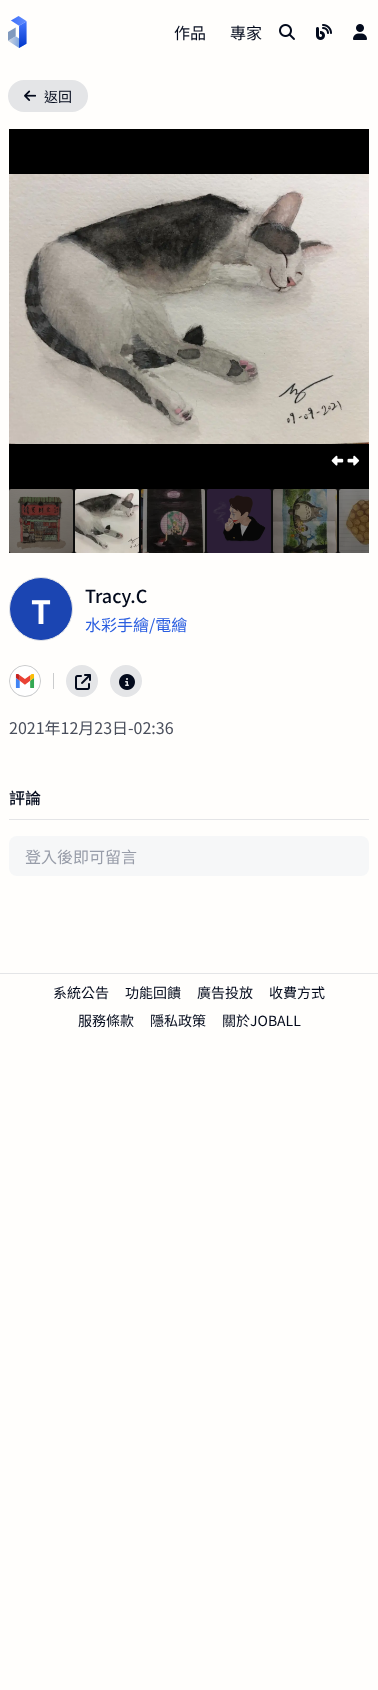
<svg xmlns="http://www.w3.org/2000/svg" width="378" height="1690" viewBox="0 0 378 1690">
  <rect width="100%" height="100%" fill="rgb(255,254,252)"/>
  <image x="8" y="16" width="19" height="32" href="pic1.png"/>
  <g font-family="Noto Sans TC" font-size="16" fill="rgb(3,10,28)">
    <text x="174" y="39">作品</text>
    <text x="230" y="39">專家</text>
  </g>
  <image x="279" y="24" width="16" height="16" href="pic2.png"/>
  <image x="316" y="24" width="16" height="16" href="pic3.png"/>
  <image x="353" y="24" width="14" height="16" href="pic4.png"/>
  <rect x="8" y="80" width="80" height="32" rx="16" fill="rgb(228,229,231)"/>
  <image x="24" y="90" width="12" height="11" href="pic5.png"/>
  <text x="44" y="102" font-family="Noto Sans TC" font-size="14" fill="rgb(3,10,28)">返回</text>
  <rect x="9" y="129" width="360" height="360" fill="rgb(0,0,0)"/>
  <image x="9" y="174" width="360" height="270" href="pic6.png"/>
  <image x="331" y="455" width="29" height="11" href="pic7.png"/>
  <rect x="9" y="489" width="360" height="64" fill="rgb(13,13,13)"/>
  <image x="9" y="489" width="64" height="64" href="pic8.png"/>
  <image x="75" y="489" width="64" height="64" href="pic9.png"/>
  <image x="141" y="489" width="64" height="64" href="pic10.png"/>
  <image x="207" y="489" width="64" height="64" href="pic11.png"/>
  <image x="273" y="489" width="64" height="64" href="pic12.png"/>
  <image x="339" y="489" width="30" height="64" href="pic13.png"/>
  <circle cx="41" cy="609" r="31.5" fill="rgb(27,69,178)" stroke="rgb(228,229,231)"/>
  <text x="31" y="624" font-family="Noto Sans TC" font-size="32" font-weight="bold" fill="rgb(255,255,255)">T</text>
  <text x="85" y="603" font-family="Noto Sans TC" font-size="18" font-weight="500" fill="rgb(3,10,28)">Tracy.C</text>
  <text x="85" y="631" font-family="Noto Sans TC" font-size="16" fill="rgb(41,93,224)">水彩手繪/電繪</text>
  <circle cx="25" cy="681" r="15.5" fill="rgb(228,229,231)" stroke="rgb(203,204,205)"/>
  <image x="10" y="666" width="30" height="30" href="pic14.png"/>
  <rect x="53" y="673" width="1" height="16" fill="rgb(203,204,205)"/>
  <circle cx="82" cy="681" r="16" fill="rgb(228,229,231)"/>
  <image x="75" y="674" width="16" height="16" href="pic15.png"/>
  <circle cx="126" cy="681" r="16" fill="rgb(228,229,231)"/>
  <image x="119" y="674" width="16" height="16" href="pic16.png"/>
  <text x="9" y="734" font-family="Noto Sans TC" font-size="16" fill="rgb(73,78,91)">2021年12月23日-02:36</text>
  <text x="9" y="804" font-family="Noto Sans TC" font-size="16" font-weight="500" fill="rgb(3,10,28)">評論</text>
  <rect x="9" y="819" width="360" height="1" fill="rgb(228,229,231)"/>
  <rect x="9" y="836" width="360" height="40" rx="8" fill="rgb(246,247,248)"/>
  <text x="25" y="863" font-family="Noto Sans TC" font-size="16" fill="rgb(152,157,169)">登入後即可留言</text>
  <rect x="0" y="973" width="378" height="1" fill="rgb(228,229,231)"/>
  <g font-family="Noto Sans TC" font-size="14" fill="rgb(3,10,28)">
    <text x="53" y="998">系統公告</text>
    <text x="125" y="998">功能回饋</text>
    <text x="197" y="998">廣告投放</text>
    <text x="269" y="998">收費方式</text>
    <text x="78" y="1026">服務條款</text>
    <text x="150" y="1026">隱私政策</text>
    <text x="222" y="1026">關於JOBALL</text>
  </g>
</svg>
